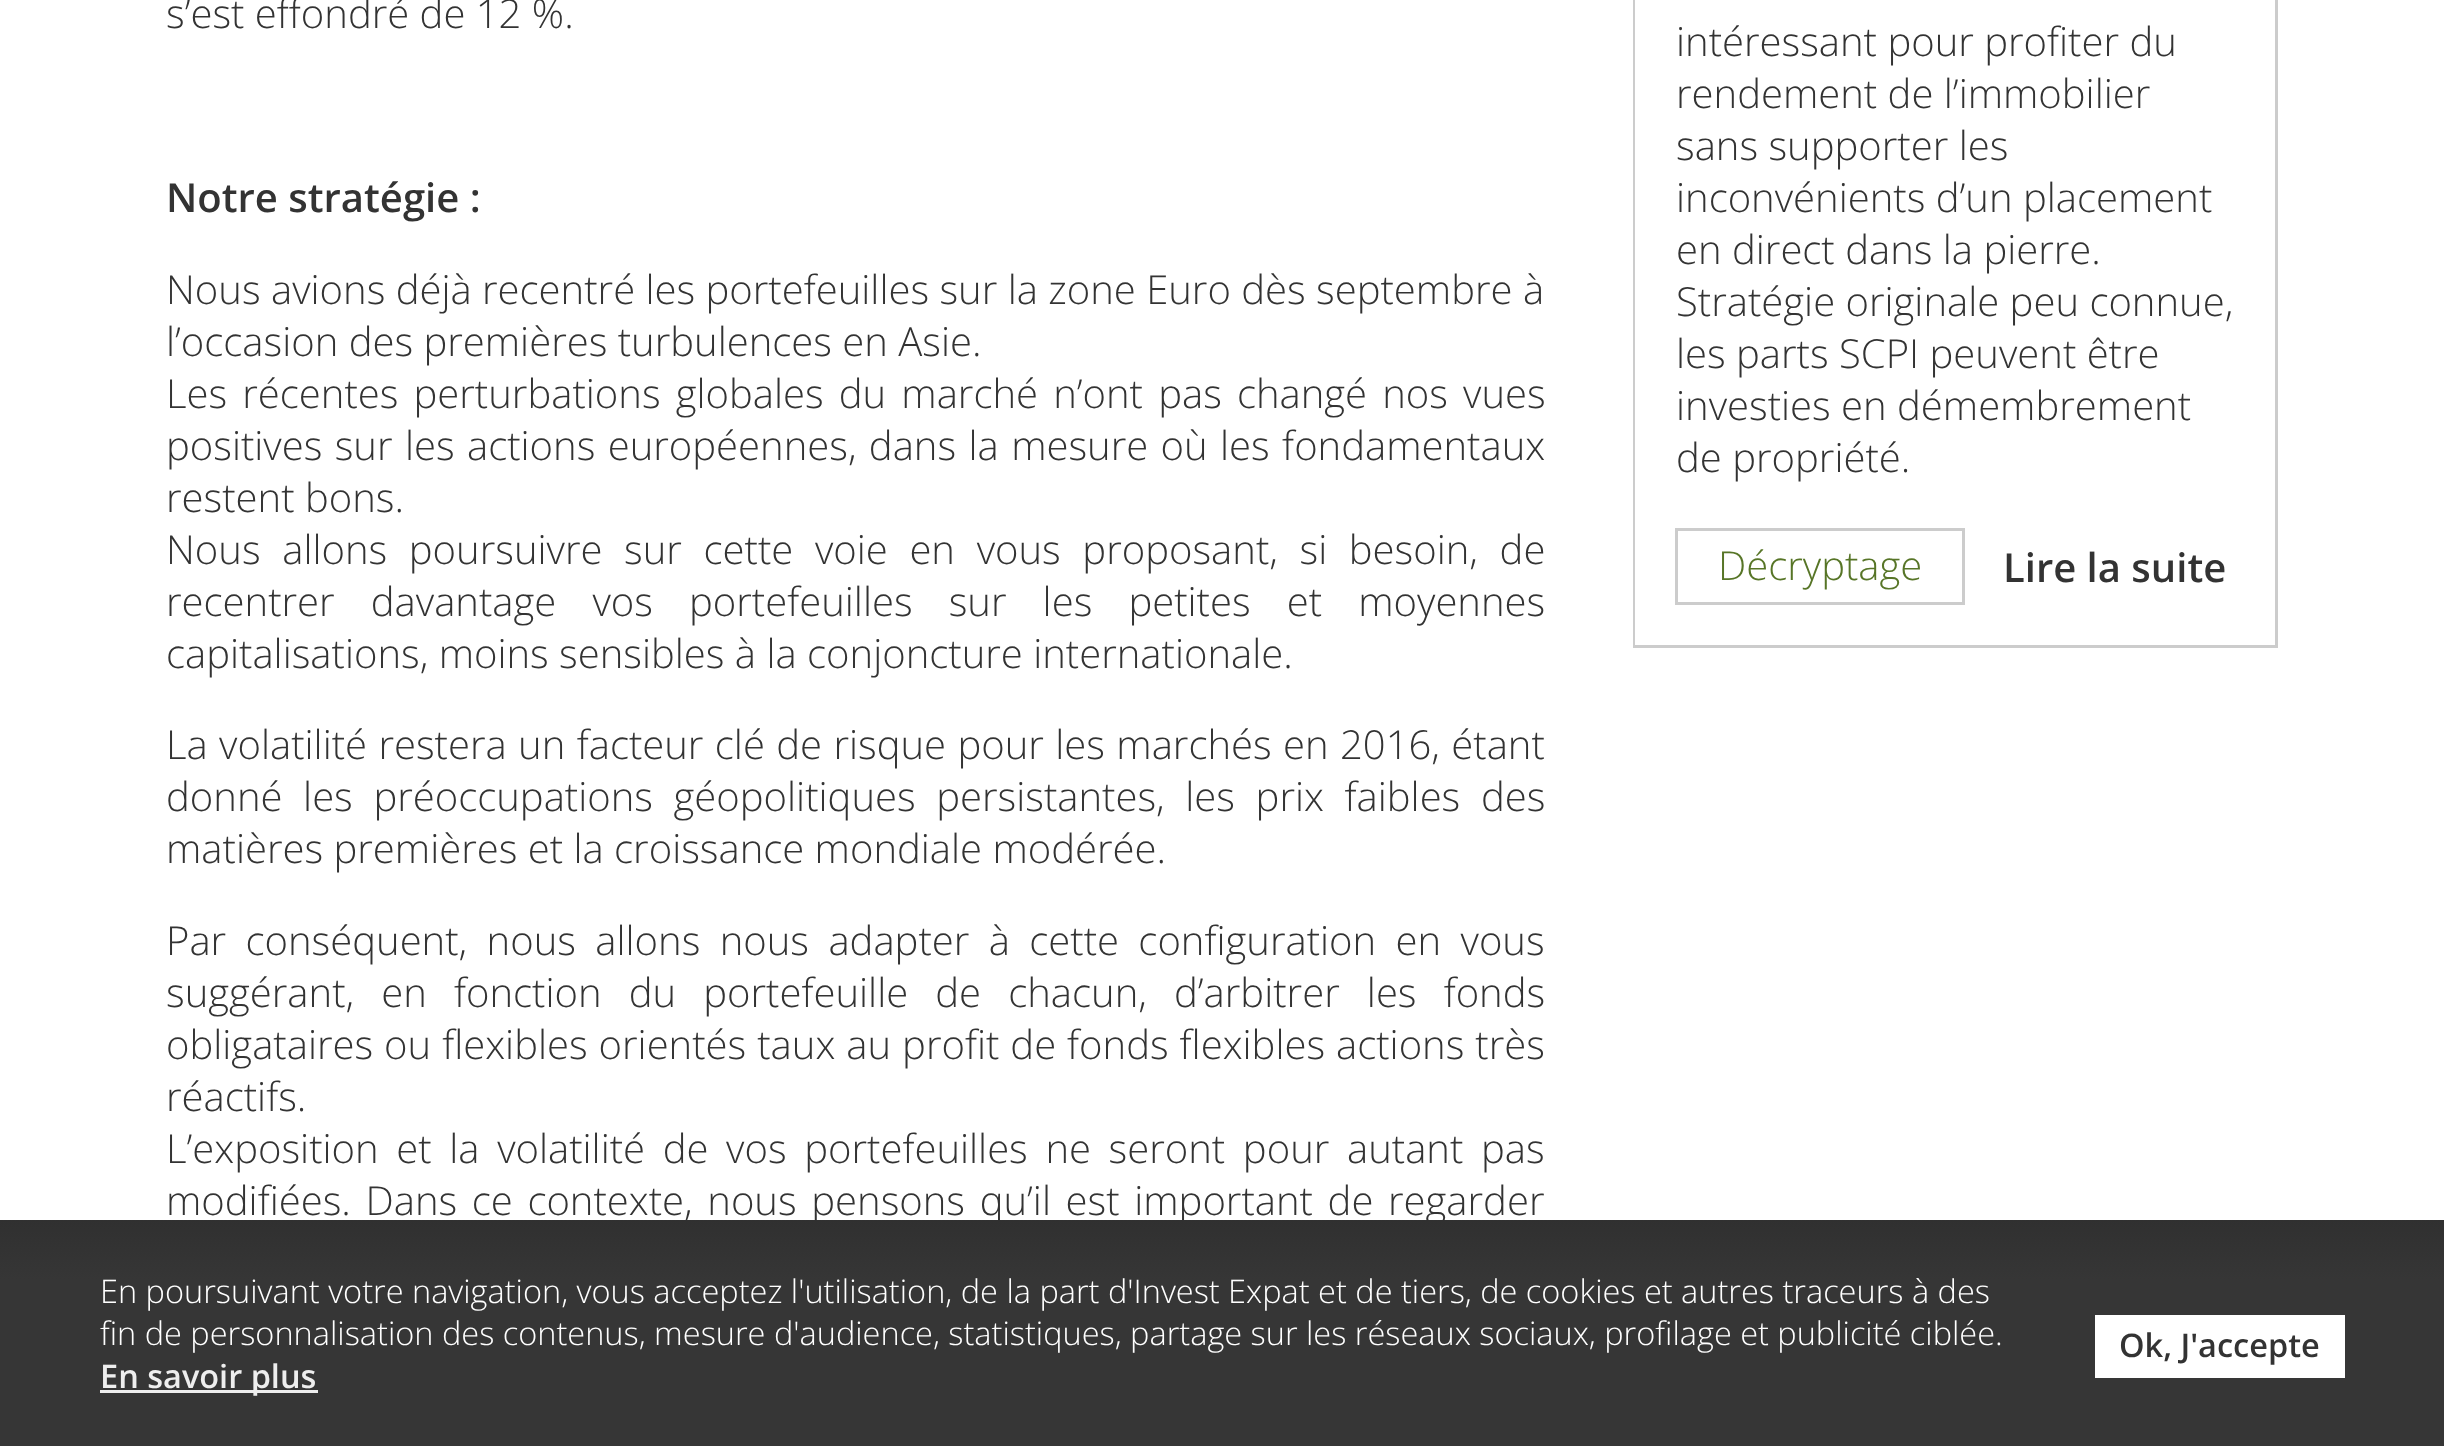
<svg xmlns="http://www.w3.org/2000/svg" width="2444" height="1446" viewBox="0 0 2444 1446">
  <defs>
    <linearGradient id="g1" gradientUnits="userSpaceOnUse" x1="1223" y1="1220" x2="1223" y2="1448"><stop offset="0" stop-color="rgb(48,48,48)"/><stop offset="0.26" stop-color="rgb(54,54,54)"/><stop offset="1" stop-color="rgb(54,54,54)"/></linearGradient>
  </defs>
  <rect width="100%" height="100%" fill="rgb(255,255,255)"/>
  <text x="166" y="28" font-family="Open Sans" font-size="40" font-weight="300" fill="rgb(51,51,51)">s’est effondré de 12 %.</text>
  <text x="166" y="212" font-family="Open Sans" font-size="40" font-weight="600" fill="rgb(51,51,51)">Notre stratégie :</text>
  <g font-family="Open Sans" font-size="40" font-weight="300" fill="rgb(51,51,51)">
    <text>
      <tspan x="166" y="304">Nous avions déjà recentré les portefeuilles sur la zone Euro dès septembre à</tspan>
      <tspan x="166" y="356">l’occasion des premières turbulences en Asie.</tspan>
      <tspan x="166" y="408" word-spacing="4.75">Les récentes perturbations globales du marché n’ont pas changé nos vues</tspan>
      <tspan x="166" y="460" word-spacing="2">positives sur les actions européennes, dans la mesure où les fondamentaux</tspan>
      <tspan x="166" y="512">restent bons.</tspan>
      <tspan x="166" y="564" word-spacing="11.25">Nous allons poursuivre sur cette voie en vous proposant, si besoin, de</tspan>
      <tspan x="166" y="616" word-spacing="25.75">recentrer davantage vos portefeuilles sur les petites et moyennes</tspan>
      <tspan x="166" y="668">capitalisations, moins sensibles à la conjoncture internationale.</tspan>
    </text>
    <text>
      <tspan x="166" y="759" word-spacing="1">La volatilité restera un facteur clé de risque pour les marchés en 2016, étant</tspan>
      <tspan x="166" y="811" word-spacing="10.25">donné les préoccupations géopolitiques persistantes, les prix faibles des</tspan>
      <tspan x="166" y="863">matières premières et la croissance mondiale modérée.</tspan>
    </text>
    <text>
      <tspan x="166" y="955" word-spacing="9">Par conséquent, nous allons nous adapter à cette configuration en vous</tspan>
      <tspan x="166" y="1007" word-spacing="16.75">suggérant, en fonction du portefeuille de chacun, d’arbitrer les fonds</tspan>
      <tspan x="166" y="1059" word-spacing="0.6">obligataires ou flexibles orientés taux au profit de fonds flexibles actions très</tspan>
      <tspan x="166" y="1111">réactifs.</tspan>
      <tspan x="166" y="1163" word-spacing="7.25">L’exposition et la volatilité de vos portefeuilles ne seront pour autant pas</tspan>
      <tspan x="166" y="1215" word-spacing="4.25">modifiées. Dans ce contexte, nous pensons qu’il est important de regarder</tspan>
    </text>
  </g>
  <rect x="1634.5" y="-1.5" width="642" height="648" fill="none" stroke="rgb(204,204,204)" stroke-width="3"/>
  <rect x="1635" y="0" width="1" height="645" fill="rgb(255,255,255)"/>
  <g font-family="Open Sans" font-size="40" font-weight="300" fill="rgb(51,51,51)">
    <text>
      <tspan x="1676" y="56">intéressant pour profiter du</tspan>
      <tspan x="1676" y="108">rendement de l’immobilier</tspan>
      <tspan x="1676" y="160">sans supporter les</tspan>
      <tspan x="1676" y="212">inconvénients d’un placement</tspan>
      <tspan x="1676" y="264">en direct dans la pierre.</tspan>
      <tspan x="1676" y="316">Stratégie originale peu connue,</tspan>
      <tspan x="1676" y="368">les parts SCPI peuvent être</tspan>
      <tspan x="1676" y="420">investies en démembrement</tspan>
      <tspan x="1676" y="472">de propriété.</tspan>
    </text>
  </g>
  <rect x="1676.5" y="529.5" width="287" height="74" fill="none" stroke="rgb(204,204,204)" stroke-width="3"/>
  <text x="1718" y="580" font-family="Open Sans" font-size="40" font-weight="300" fill="rgb(87,117,39)">Décryptage</text>
  <text x="2003" y="582" font-family="Open Sans" font-size="40" font-weight="600" fill="rgb(51,51,51)">Lire la suite</text>
  <rect x="0" y="1220" width="2444" height="226" fill="url(#g1)"/>
  <g font-family="Open Sans" font-size="32.5" font-weight="300" fill="rgb(255,255,255)">
    <text>
      <tspan x="100" y="1303">En poursuivant votre navigation, vous acceptez l'utilisation, de la part d'Invest Expat et de tiers, de cookies et autres traceurs à des</tspan>
      <tspan x="100" y="1345">fin de personnalisation des contenus, mesure d'audience, statistiques, partage sur les réseaux sociaux, profilage et publicité ciblée.</tspan>
    </text>
  </g>
  <rect x="100" y="1390" width="218" height="3" fill="rgb(238,238,238)"/>
  <text x="100" y="1388" font-family="Open Sans" font-size="32.5" font-weight="600" fill="rgb(238,238,238)">En savoir plus</text>
  <rect x="2095" y="1315" width="250" height="63" fill="rgb(255,255,255)"/>
  <text x="2119" y="1357" font-family="Open Sans" font-size="32.5" font-weight="600" fill="rgb(51,51,51)">Ok, J'accepte</text>
</svg>
